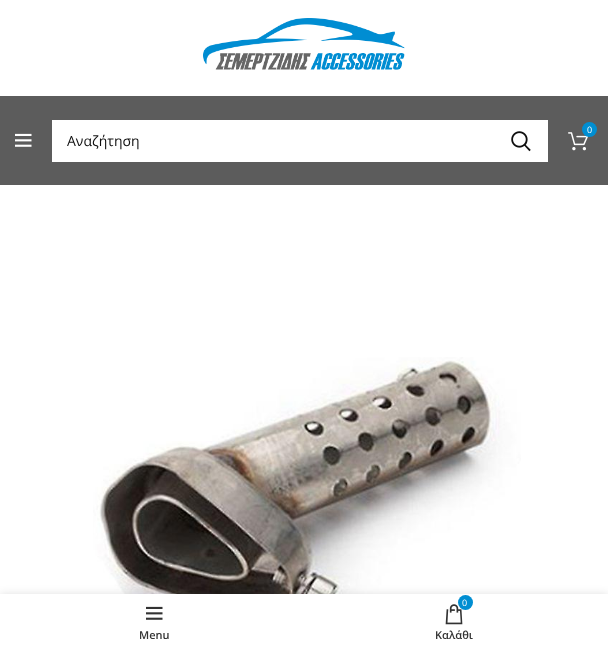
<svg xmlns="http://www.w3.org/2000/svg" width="608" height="649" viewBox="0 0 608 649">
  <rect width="100%" height="100%" fill="rgb(255,255,255)"/>
  <image x="203" y="18" width="202" height="52" href="pic1.png"/>
  <rect x="0" y="96" width="608" height="89" fill="rgb(92,92,92)"/>
  <image x="568" y="132" width="20" height="19" href="pic2.png"/>
  <circle cx="589.5" cy="129.5" r="7.5" fill="rgb(0,142,210)"/>
  <text x="587" y="133" font-family="Open Sans" font-size="9" fill="rgb(255,255,255)">0</text>
  <image x="15" y="133" width="17" height="14" href="pic3.png"/>
  <rect x="52" y="120" width="496" height="42" fill="rgb(255,255,255)"/>
  <text x="67" y="146" font-family="Open Sans" font-size="14" fill="rgb(15,15,15)">Αναζήτηση</text>
  <image x="511" y="131" width="20" height="21" href="pic4.png"/>
  <image x="93" y="357" width="428" height="237" href="pic5.png"/>
  <rect x="0" y="594" width="608" height="55" fill="rgba(0,0,0,0.12)" filter="blur(4.5px)"/>
  <rect x="0" y="594" width="608" height="55" fill="rgb(255,255,255)"/>
  <image x="146" y="606" width="17" height="14" href="pic6.png"/>
  <text x="139" y="639" font-family="Open Sans" font-size="11" font-weight="600" fill="rgb(51,51,51)">Menu</text>
  <image x="445" y="604" width="18" height="21" href="pic7.png"/>
  <circle cx="465.5" cy="602.5" r="7.5" fill="rgb(0,142,210)"/>
  <text x="462" y="606" font-family="Open Sans" font-size="9" fill="rgb(255,255,255)">0</text>
  <text x="435" y="639" font-family="Open Sans" font-size="11" font-weight="600" fill="rgb(51,51,51)">Καλάθι</text>
</svg>
